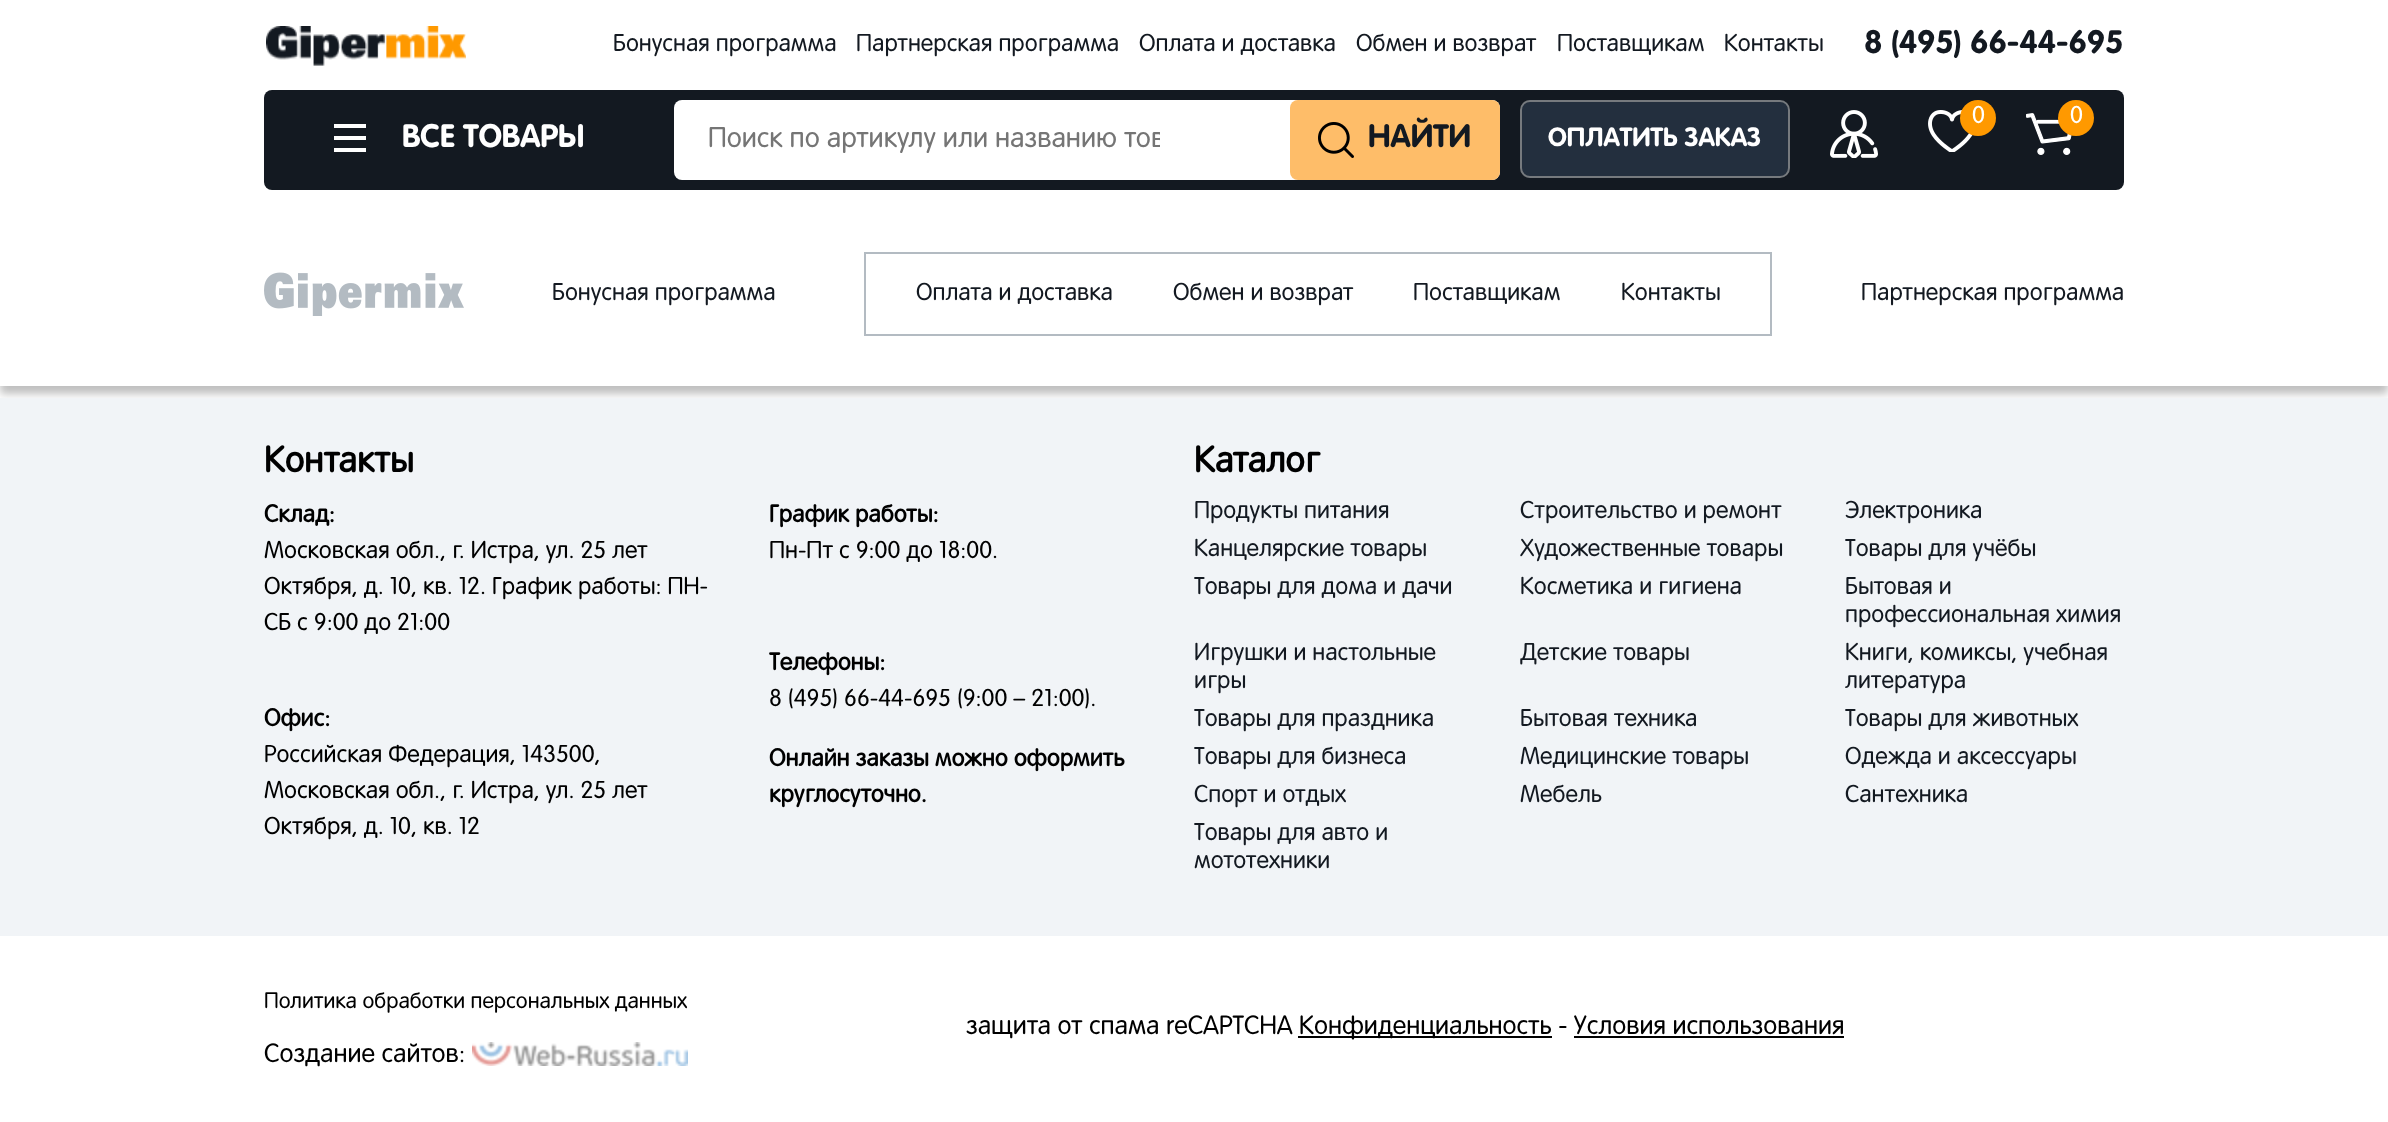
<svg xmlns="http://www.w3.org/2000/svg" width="2388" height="1122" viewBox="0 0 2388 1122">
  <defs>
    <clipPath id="clip1"><rect x="708" y="126" width="452" height="32"/></clipPath>
    <clipPath id="clip2"><rect x="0" y="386" width="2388" height="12"/></clipPath>
  </defs>
  <rect width="100%" height="100%" fill="rgb(255,255,255)"/>
  <image x="266" y="26" width="200" height="40" href="pic1.png"/>
  <g font-family="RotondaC" font-size="24" fill="rgb(19,25,33)">
    <text x="613" y="51">Бонусная программа</text>
    <text x="856" y="51">Партнерская программа</text>
    <text x="1139" y="51">Оплата и доставка</text>
    <text x="1356" y="51">Обмен и возврат</text>
    <text x="1557" y="51">Поставщикам</text>
    <text x="1724" y="51">Контакты</text>
  </g>
  <text x="1864" y="53" font-family="'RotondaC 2'" font-size="32" font-weight="bold" fill="rgb(19,25,33)">8 (495) 66-44-695</text>
  <rect x="264" y="90" width="1860" height="100" rx="8" fill="rgb(19,25,33)"/>
  <rect x="334" y="124" width="32" height="4" fill="rgb(255,255,255)"/>
  <rect x="334" y="136" width="32" height="4" fill="rgb(255,255,255)"/>
  <rect x="334" y="148" width="32" height="4" fill="rgb(255,255,255)"/>
  <text x="402" y="147" font-family="'RotondaC 2'" font-size="32" font-weight="bold" fill="rgb(255,255,255)">ВСЕ ТОВАРЫ</text>
  <image x="1830" y="110" width="48" height="48" href="pic2.png"/>
  <image x="1928" y="110" width="45" height="42" href="pic3.png"/>
  <circle cx="1978" cy="118" r="18" fill="rgb(255,153,0)"/>
  <text x="1972" y="123" font-family="RotondaC" font-size="24" fill="rgb(255,255,255)">0</text>
  <image x="2026" y="113" width="46" height="42" href="pic4.png"/>
  <circle cx="2076" cy="118" r="18" fill="rgb(255,153,0)"/>
  <text x="2070" y="123" font-family="RotondaC" font-size="24" fill="rgb(255,255,255)">0</text>
  <rect x="674" y="100" width="826" height="80" rx="8" fill="rgb(255,255,255)"/>
  <g clip-path="url(#clip1)">
    <text x="708" y="147" font-family="RotondaC" font-size="28" fill="rgb(117,117,117)">Поиск по артикулу или названию тов</text>
  </g>
  <rect x="1290" y="100" width="210" height="80" rx="8" fill="rgb(254,189,105)"/>
  <image x="1318" y="122" width="36" height="36" href="pic5.png"/>
  <text x="1368" y="147" font-family="'RotondaC 2'" font-size="32" font-weight="bold" fill="rgb(19,25,33)">НАЙТИ</text>
  <rect x="1521" y="101" width="268" height="76" rx="9" fill="rgb(35,47,62)" stroke="rgb(118,122,126)" stroke-width="2"/>
  <text x="1548" y="146" font-family="'RotondaC 2'" font-size="26" font-weight="bold" fill="rgb(255,255,255)">ОПЛАТИТЬ ЗАКАЗ</text>
  <g clip-path="url(#clip2)">
    <rect x="0" y="260" width="2388" height="134" fill="rgba(0,0,0,0.25)" filter="blur(4px)"/>
  </g>
  <image x="264" y="272" width="200" height="44" href="pic6.png"/>
  <text x="552" y="300" font-family="RotondaC" font-size="24" fill="rgb(19,25,33)">Бонусная программа</text>
  <rect x="865" y="253" width="906" height="82" fill="none" stroke="rgb(179,187,194)" stroke-width="2"/>
  <g font-family="RotondaC" font-size="24" fill="rgb(19,25,33)">
    <text x="916" y="300">Оплата и доставка</text>
    <text x="1173" y="300">Обмен и возврат</text>
    <text x="1413" y="300">Поставщикам</text>
    <text x="1621" y="300">Контакты</text>
    <text x="1861" y="300">Партнерская программа</text>
  </g>
  <rect x="0" y="398" width="2388" height="538" fill="rgb(241,244,247)"/>
  <text x="264" y="472" font-family="RotondaC" font-size="36" font-weight="bold" fill="rgb(0,0,0)">Контакты</text>
  <text x="264" y="522" font-family="RotondaC" font-size="24" font-weight="bold" fill="rgb(0,0,0)">Склад:</text>
  <g font-family="RotondaC" font-size="24" fill="rgb(0,0,0)">
    <text>
      <tspan x="264" y="558">Московская обл., г. Истра, ул. 25 лет</tspan>
      <tspan x="264" y="594">Октября, д. 10, кв. 12. График работы: ПН-</tspan>
      <tspan x="264" y="630">СБ с 9:00 до 21:00</tspan>
    </text>
  </g>
  <text x="264" y="726" font-family="RotondaC" font-size="24" font-weight="bold" fill="rgb(0,0,0)">Офис:</text>
  <g font-family="RotondaC" font-size="24" fill="rgb(0,0,0)">
    <text>
      <tspan x="264" y="762">Российская Федерация, 143500,</tspan>
      <tspan x="264" y="798">Московская обл., г. Истра, ул. 25 лет</tspan>
      <tspan x="264" y="834">Октября, д. 10, кв. 12</tspan>
    </text>
  </g>
  <text x="769" y="522" font-family="RotondaC" font-size="24" font-weight="bold" fill="rgb(0,0,0)">График работы:</text>
  <text x="769" y="558" font-family="RotondaC" font-size="24" fill="rgb(0,0,0)">Пн-Пт с 9:00 до 18:00.</text>
  <text x="769" y="670" font-family="RotondaC" font-size="24" font-weight="bold" fill="rgb(0,0,0)">Телефоны:</text>
  <text x="769" y="706" font-family="RotondaC" font-size="24" fill="rgb(0,0,0)">8 (495) 66-44-695 (9:00 – 21:00).</text>
  <g font-family="RotondaC" font-size="24" font-weight="bold" fill="rgb(0,0,0)">
    <text>
      <tspan x="769" y="766">Онлайн заказы можно оформить</tspan>
      <tspan x="769" y="802">круглосуточно.</tspan>
    </text>
  </g>
  <text x="1194" y="472" font-family="RotondaC" font-size="36" font-weight="bold" fill="rgb(0,0,0)">Каталог</text>
  <g font-family="RotondaC" font-size="24" fill="rgb(19,25,33)">
    <text x="1194" y="518">Продукты питания</text>
    <text x="1520" y="518">Строительство и ремонт</text>
    <text x="1845" y="518">Электроника</text>
    <text x="1194" y="556">Канцелярские товары</text>
    <text x="1520" y="556">Художественные товары</text>
    <text x="1845" y="556">Товары для учёбы</text>
    <text x="1194" y="594">Товары для дома и дачи</text>
    <text x="1520" y="594">Косметика и гигиена</text>
    <text>
      <tspan x="1845" y="594">Бытовая и</tspan>
      <tspan x="1845" y="622">профессиональная химия</tspan>
    </text>
    <text>
      <tspan x="1194" y="660">Игрушки и настольные</tspan>
      <tspan x="1194" y="688">игры</tspan>
    </text>
    <text x="1520" y="660">Детские товары</text>
    <text>
      <tspan x="1845" y="660">Книги, комиксы, учебная</tspan>
      <tspan x="1845" y="688">литература</tspan>
    </text>
    <text x="1194" y="726">Товары для праздника</text>
    <text x="1520" y="726">Бытовая техника</text>
    <text x="1845" y="726">Товары для животных</text>
    <text x="1194" y="764">Товары для бизнеса</text>
    <text x="1520" y="764">Медицинские товары</text>
    <text x="1845" y="764">Одежда и аксессуары</text>
    <text x="1194" y="802">Спорт и отдых</text>
    <text x="1520" y="802">Мебель</text>
    <text x="1845" y="802">Сантехника</text>
    <text>
      <tspan x="1194" y="840">Товары для авто и</tspan>
      <tspan x="1194" y="868">мототехники</tspan>
    </text>
  </g>
  <text x="264" y="1008" font-family="RotondaC" font-size="22" fill="rgb(0,0,0)">Политика обработки персональных данных</text>
  <text x="264" y="1062" font-family="RotondaC" font-size="26" fill="rgb(0,0,0)">Создание сайтов:</text>
  <image x="472" y="1042" width="216" height="24" href="pic7.png"/>
  <text x="966" y="1034" font-family="RotondaC" font-size="26" fill="rgb(0,0,0)">защита от спама reCAPTCHA</text>
  <rect x="1298" y="1036" width="254" height="2" fill="rgb(0,0,0)"/>
  <text x="1299" y="1034" font-family="RotondaC" font-size="26" fill="rgb(0,0,0)">Конфиденциальность - Условия использования</text>
  <rect x="1574" y="1036" width="270" height="2" fill="rgb(0,0,0)"/>
</svg>
